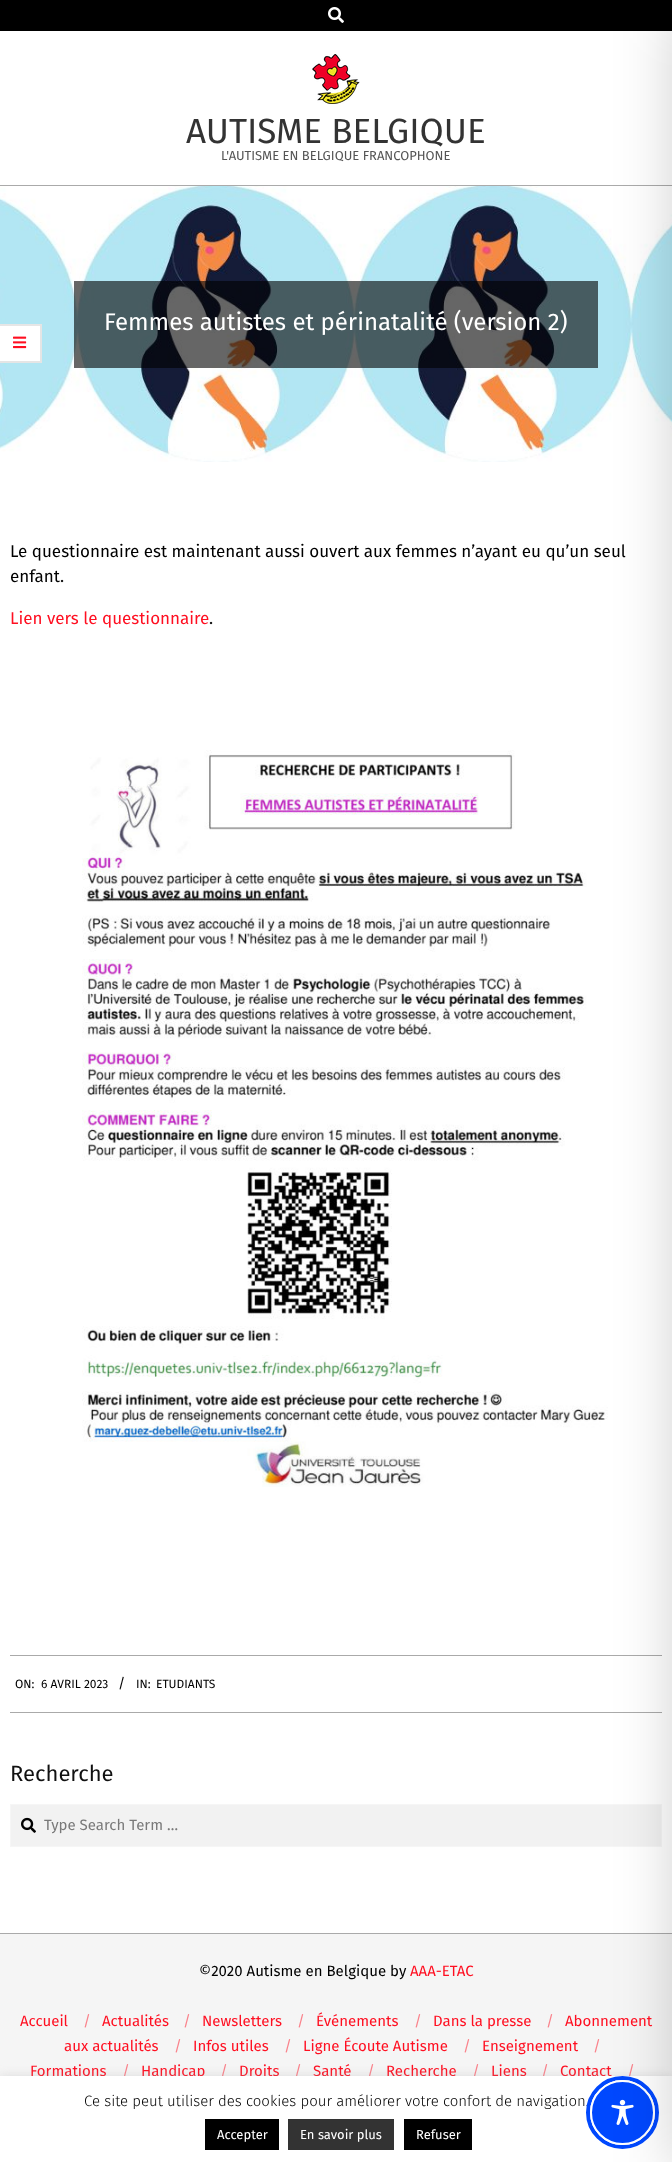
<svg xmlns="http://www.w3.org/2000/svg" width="672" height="2162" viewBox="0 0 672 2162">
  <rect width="100%" height="100%" fill="rgb(255,255,255)"/>
  <rect x="0" y="0" width="672" height="31" fill="rgb(0,0,0)"/>
  <image x="328" y="7" width="16" height="16" href="pic1.png"/>
  <rect x="0" y="185" width="672" height="1" fill="rgb(170,170,170)"/>
  <image x="0" y="186" width="672" height="276" href="pic4.png"/>
  <rect x="74" y="281" width="524" height="87" fill="rgba(0,0,0,0.6)"/>
  <rect x="10" y="1655" width="652" height="1" fill="rgb(170,170,170)"/>
  <image x="82" y="750" width="526" height="737" href="pic5.png"/>
  <rect x="10" y="1712" width="652" height="1" fill="rgb(170,170,170)"/>
  <rect x="10.5" y="1804.5" width="651" height="42" fill="rgb(242,242,242)" stroke="rgb(246,246,246)"/>
  <rect x="0" y="1934" width="672" height="142" fill="rgb(245,245,245)"/>
  <rect x="0" y="1933" width="672" height="1" fill="rgb(170,170,170)"/>
  <text x="30" y="2076" font-family="Fira Sans" font-size="15" fill="rgb(255,15,33)">Formations</text>
  <text x="122" y="2076" font-family="Fira Sans" font-size="15" fill="rgb(250,130,139)">/</text>
  <text x="141" y="2076" font-family="Fira Sans" font-size="15" fill="rgb(255,15,33)">Handicap</text>
  <text x="220" y="2076" font-family="Fira Sans" font-size="15" fill="rgb(250,130,139)">/</text>
  <text x="239" y="2076" font-family="Fira Sans" font-size="15" fill="rgb(255,15,33)">Droits</text>
  <text x="294" y="2076" font-family="Fira Sans" font-size="15" fill="rgb(250,130,139)">/</text>
  <text x="313" y="2076" font-family="Fira Sans" font-size="15" fill="rgb(255,15,33)">Santé</text>
  <text x="367" y="2076" font-family="Fira Sans" font-size="15" fill="rgb(250,130,139)">/</text>
  <text x="386" y="2076" font-family="Fira Sans" font-size="15" fill="rgb(255,15,33)">Recherche</text>
  <text x="472" y="2076" font-family="Fira Sans" font-size="15" fill="rgb(250,130,139)">/</text>
  <text x="491" y="2076" font-family="Fira Sans" font-size="15" fill="rgb(255,15,33)">Liens</text>
  <text x="541" y="2076" font-family="Fira Sans" font-size="15" fill="rgb(250,130,139)">/</text>
  <text x="560" y="2076" font-family="Fira Sans" font-size="15" fill="rgb(255,15,33)">Contact</text>
  <text x="627" y="2076" font-family="Fira Sans" font-size="15" fill="rgb(250,130,139)">/</text>
  <rect x="0" y="2075" width="672" height="86" fill="rgba(172,171,171,0.3)" filter="blur(5px)"/>
  <rect x="0" y="2076" width="672" height="86" fill="rgb(255,255,255)"/>
  <text x="84" y="2106" font-family="Fira Sans" font-size="15" font-weight="300" fill="rgb(0,0,0)">Ce site peut utiliser des cookies pour améliorer votre confort de navigation.</text>
  <circle cx="622.5" cy="2112.5" r="34.5" fill="none" stroke="rgb(0,72,254)" stroke-width="4"/>
  <circle cx="622.5" cy="2112.5" r="31.5" fill="rgb(0,72,254)" stroke="rgb(255,255,255)" stroke-width="2"/>
  <image x="611" y="2099" width="23" height="26" href="pic7.png"/>
  <rect x="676" y="10" width="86" height="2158" fill="rgba(0,0,0,0.2)" filter="blur(30px)"/>
  <image x="312" y="54" width="48" height="50" href="pic2.png"/>
  <text x="186" y="143" font-family="Fira Sans" font-size="35" fill="rgb(51,51,51)">AUTISME BELGIQUE</text>
  <text x="221" y="160" font-family="Fira Sans" font-size="13" fill="rgb(85,85,85)">L'AUTISME EN BELGIQUE FRANCOPHONE</text>
  <rect x="0" y="324" width="42" height="39" fill="rgb(255,255,255)"/>
  <path d="M0 324H42L40 326H0Z" fill="rgb(230,230,230)"/>
  <path d="M42 324V363L40 361V326Z" fill="rgba(0,0,0,0.1)"/>
  <path d="M42 363H0V361H40Z" fill="rgba(0,0,0,0.1)"/>
  <image x="13" y="336" width="14" height="13" href="pic3.png"/>
  <text x="104" y="330" font-family="Fira Sans" font-size="24" fill="rgb(255,255,255)">Femmes autistes et périnatalité (version 2)</text>
  <g font-family="Fira Sans" font-size="17" fill="rgb(0,0,0)">
    <text>
      <tspan x="10" y="557">Le questionnaire est maintenant aussi ouvert aux femmes n’ayant eu qu’un seul</tspan>
      <tspan x="10" y="582">enfant.</tspan>
    </text>
  </g>
  <text x="10" y="624" font-family="Fira Sans" font-size="17" fill="rgb(255,15,33)">Lien vers le questionnaire</text>
  <text x="209" y="624" font-family="Fira Sans" font-size="17" fill="rgb(0,0,0)">.</text>
  <g font-family="Fira Sans" font-size="12" fill="rgb(0,0,0)">
    <text x="15" y="1688">ON:</text>
    <text x="41" y="1688">6 AVRIL 2023</text>
  </g>
  <text x="118" y="1688" font-family="Fira Sans" font-size="14" fill="rgb(0,0,0)">/</text>
  <g font-family="Fira Sans" font-size="12" fill="rgb(0,0,0)">
    <text x="136" y="1688">IN:</text>
    <text x="156" y="1688">ETUDIANTS</text>
  </g>
  <text x="10" y="1781" font-family="Fira Sans" font-size="22" fill="rgb(17,17,17)">Recherche</text>
  <image x="21" y="1817" width="15" height="16" href="pic6.png"/>
  <text x="44" y="1830" font-family="Fira Sans" font-size="15" fill="rgb(121,121,121)">Type Search Term …</text>
  <text x="199" y="1976" font-family="Fira Sans" font-size="15" fill="rgb(0,0,0)">©2020 Autisme en Belgique by</text>
  <g font-family="Fira Sans" font-size="15" fill="rgb(255,15,33)">
    <text x="410" y="1976">AAA-ETAC</text>
    <text x="20" y="2026">Accueil</text>
  </g>
  <text x="83" y="2026" font-family="Fira Sans" font-size="15" fill="rgb(250,130,139)">/</text>
  <text x="202" y="2026" font-family="Fira Sans" font-size="15" fill="rgb(255,15,33)">Newsletters</text>
  <text x="297" y="2026" font-family="Fira Sans" font-size="15" fill="rgb(250,130,139)">/</text>
  <text x="316" y="2026" font-family="Fira Sans" font-size="15" fill="rgb(255,15,33)">Événements</text>
  <text x="414" y="2026" font-family="Fira Sans" font-size="15" fill="rgb(250,130,139)">/</text>
  <text x="433" y="2026" font-family="Fira Sans" font-size="15" fill="rgb(255,15,33)">Dans la presse</text>
  <text x="546" y="2026" font-family="Fira Sans" font-size="15" fill="rgb(250,130,139)">/</text>
  <g font-family="Fira Sans" font-size="15" fill="rgb(255,15,33)">
    <text x="565" y="2026">Abonnement</text>
    <text x="64" y="2051">aux actualités</text>
  </g>
  <text x="174" y="2051" font-family="Fira Sans" font-size="15" fill="rgb(250,130,139)">/</text>
  <text x="102" y="2026" font-family="Fira Sans" font-size="15" fill="rgb(255,15,33)">Actualités</text>
  <text x="183" y="2026" font-family="Fira Sans" font-size="15" fill="rgb(250,130,139)">/</text>
  <text x="303" y="2051" font-family="Fira Sans" font-size="15" fill="rgb(255,15,33)">Ligne Écoute Autisme</text>
  <text x="463" y="2051" font-family="Fira Sans" font-size="15" fill="rgb(250,130,139)">/</text>
  <text x="482" y="2051" font-family="Fira Sans" font-size="15" fill="rgb(255,15,33)">Enseignement</text>
  <text x="593" y="2051" font-family="Fira Sans" font-size="15" fill="rgb(250,130,139)">/</text>
  <text x="193" y="2051" font-family="Fira Sans" font-size="15" fill="rgb(255,15,33)">Infos utiles</text>
  <text x="284" y="2051" font-family="Fira Sans" font-size="15" fill="rgb(250,130,139)">/</text>
  <rect x="205" y="2119" width="74" height="31" fill="rgb(0,0,0)"/>
  <text x="217" y="2139" font-family="Fira Sans" font-size="13" fill="rgb(255,255,255)">Accepter</text>
  <rect x="288" y="2119" width="106" height="31" fill="rgb(51,51,51)"/>
  <text x="300" y="2139" font-family="Fira Sans" font-size="13" fill="rgb(255,255,255)">En savoir plus</text>
  <rect x="404" y="2119" width="68" height="31" fill="rgb(0,0,0)"/>
  <text x="416" y="2139" font-family="Fira Sans" font-size="13" fill="rgb(255,255,255)">Refuser</text>
</svg>
